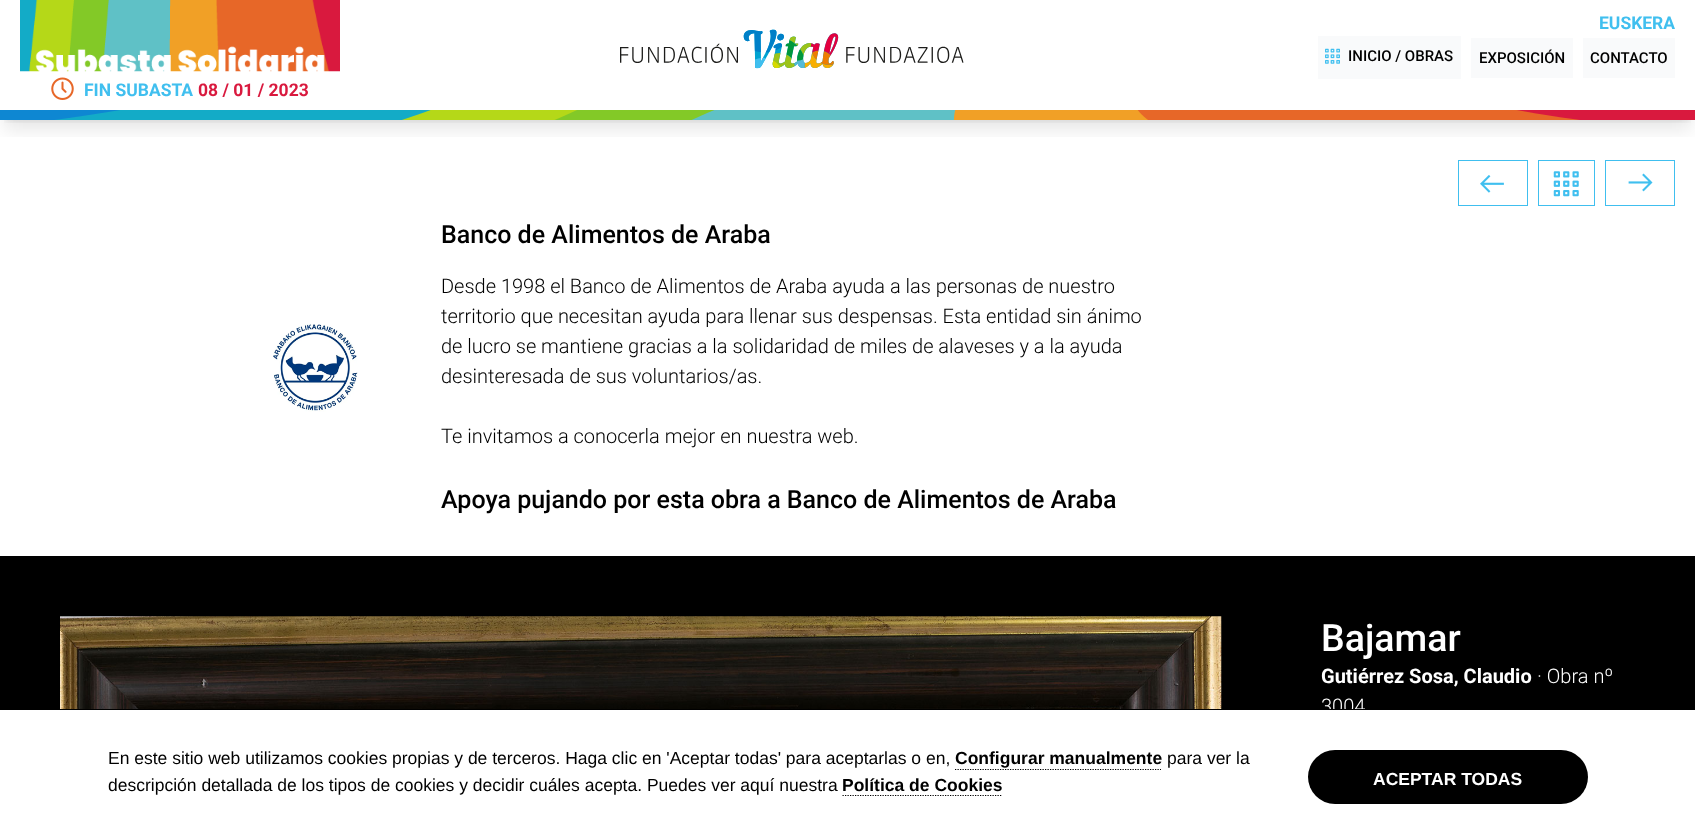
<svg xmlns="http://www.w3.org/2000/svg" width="1695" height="833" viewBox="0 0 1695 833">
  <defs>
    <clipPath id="clip1"><rect x="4" y="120" width="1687" height="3"/></clipPath>
    <clipPath id="clip2"><rect x="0" y="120" width="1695" height="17"/></clipPath>
  </defs>
  <rect width="100%" height="100%" fill="rgb(255,255,255)"/>
  <g clip-path="url(#clip1)">
    <rect x="5" y="10" width="1685" height="110" fill="rgba(0,0,0,0.1)" filter="blur(4px)"/>
  </g>
  <g clip-path="url(#clip2)">
    <rect x="4" y="16" width="1687" height="113" fill="rgba(0,0,0,0.1)" filter="blur(9.5px)"/>
  </g>
  <text x="1599" y="29" font-family="Roboto" font-size="17.5" font-weight="bold" fill="rgb(64,191,239)">EUSKERA</text>
  <image x="620" y="29" width="344" height="40" href="pic1.png"/>
  <rect x="1318" y="36" width="143" height="43" fill="rgb(249,250,251)"/>
  <image x="1325" y="48" width="15" height="16" href="pic2.png"/>
  <text x="1348" y="61" font-family="Roboto" font-size="15" font-weight="500" fill="rgb(0,0,0)">INICIO / OBRAS</text>
  <rect x="1471" y="38" width="102" height="40" fill="rgb(249,250,251)"/>
  <text x="1479" y="63" font-family="Roboto" font-size="15" font-weight="500" fill="rgb(0,0,0)">EXPOSICIÓN</text>
  <rect x="1583" y="38" width="92" height="40" fill="rgb(249,250,251)"/>
  <text x="1590" y="63" font-family="Roboto" font-size="15" font-weight="500" fill="rgb(0,0,0)">CONTACTO</text>
  <image x="20" y="0" width="320" height="72" href="pic3.png"/>
  <image x="51" y="77" width="23" height="23" href="pic4.png"/>
  <text x="84" y="96" font-family="Roboto" font-size="17.5" font-weight="bold" fill="rgb(64,191,239)">FIN SUBASTA</text>
  <text x="198" y="96" font-family="Roboto" font-size="17.5" font-weight="bold" fill="rgb(217,25,62)">08 / 01 / 2023</text>
  <image x="0" y="110" width="1695" height="10" href="pic5.png"/>
  <rect x="1458.5" y="160.5" width="69" height="45" fill="none" stroke="rgb(64,191,239)"/>
  <image x="1480" y="175" width="24" height="18" href="pic6.png"/>
  <rect x="1538.5" y="160.5" width="56" height="45" fill="none" stroke="rgb(64,191,239)"/>
  <image x="1553" y="171" width="26" height="26" href="pic7.png"/>
  <rect x="1605.5" y="160.5" width="69" height="45" fill="none" stroke="rgb(64,191,239)"/>
  <image x="1628" y="173" width="25" height="19" href="pic8.png"/>
  <image x="273" y="324" width="85" height="88" href="pic9.png"/>
  <text x="441" y="243" font-family="Roboto" font-size="25" font-weight="500" fill="rgb(0,0,0)">Banco de Alimentos de Araba</text>
  <g font-family="Roboto" font-size="20" font-weight="300" fill="rgb(0,0,0)">
    <text>
      <tspan x="441" y="293">Desde 1998 el Banco de Alimentos de Araba ayuda a las personas de nuestro</tspan>
      <tspan x="441" y="323">territorio que necesitan ayuda para llenar sus despensas. Esta entidad sin ánimo</tspan>
      <tspan x="441" y="353">de lucro se mantiene gracias a la solidaridad de miles de alaveses y a la ayuda</tspan>
      <tspan x="441" y="383">desinteresada de sus voluntarios/as.</tspan>
    </text>
    <text x="441" y="443">Te invitamos a conocerla mejor en nuestra web.</text>
  </g>
  <text x="441" y="508" font-family="Roboto" font-size="25" font-weight="500" fill="rgb(0,0,0)">Apoya pujando por esta obra a Banco de Alimentos de Araba</text>
  <rect x="0" y="556" width="1695" height="153" fill="rgb(0,0,0)"/>
  <image x="60" y="616" width="1162" height="93" href="pic10.png"/>
  <text x="1321" y="651" font-family="Roboto" font-size="37.5" font-weight="500" fill="rgb(255,255,255)">Bajamar</text>
  <text x="1321" y="683" font-family="Roboto" font-size="20" font-weight="bold" fill="rgb(255,255,255)">Gutiérrez Sosa, Claudio</text>
  <g font-family="Roboto" font-size="20" font-weight="300" fill="rgb(255,255,255)">
    <text x="1537" y="683">· Obra nº</text>
    <text x="1321" y="713">3004</text>
  </g>
  <rect x="0" y="709" width="1695" height="1" fill="rgb(0,0,0)"/>
  <text x="108" y="764" font-family="Liberation Sans" font-size="17.5" fill="rgb(0,0,0)">En este sitio web utilizamos cookies propias y de terceros. Haga clic en 'Aceptar todas' para aceptarlas o en,</text>
  <text x="955" y="764" font-family="Liberation Sans" font-size="17.5" font-weight="bold" fill="rgb(0,0,0)">Configurar manualmente</text>
  <path d="M955 769.5H1161" fill="none" stroke="rgb(0,0,0)" stroke-width="1.2" stroke-dasharray="1.25 1.25"/>
  <g font-family="Liberation Sans" font-size="17.5" fill="rgb(0,0,0)">
    <text x="1167" y="764">para ver la</text>
    <text x="108" y="791">descripción detallada de los tipos de cookies y decidir cuáles acepta. Puedes ver aquí nuestra</text>
  </g>
  <text x="842" y="791" font-family="Liberation Sans" font-size="17.5" font-weight="bold" fill="rgb(0,0,0)">Política de Cookies</text>
  <path d="M842.5 795.5H1002.5" fill="none" stroke="rgb(0,0,0)" stroke-width="1.2" stroke-dasharray="1.25 1.25"/>
  <rect x="1308" y="750" width="280" height="54" rx="27" fill="rgb(0,0,0)"/>
  <text x="1373" y="785" font-family="Liberation Sans" font-size="17.5" font-weight="bold" fill="rgb(255,255,255)">ACEPTAR TODAS</text>
</svg>
